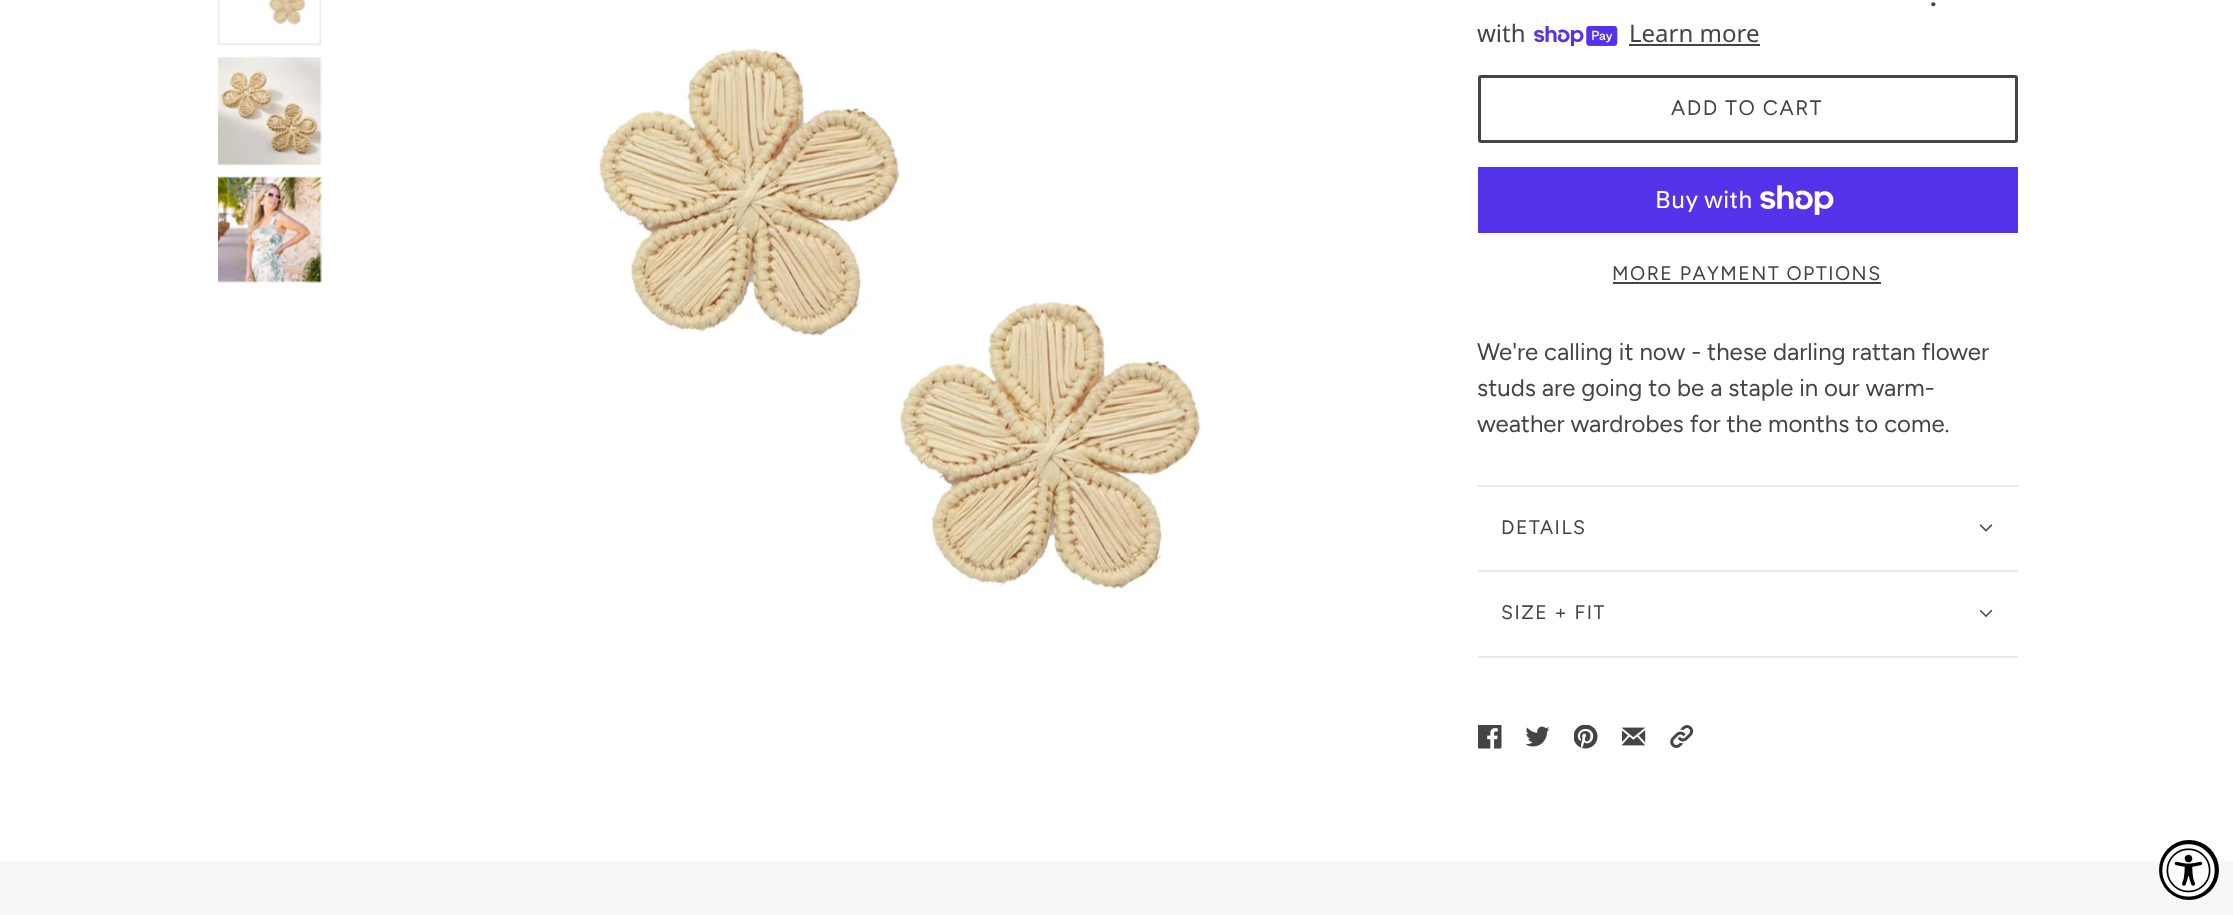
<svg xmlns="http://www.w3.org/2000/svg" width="2233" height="915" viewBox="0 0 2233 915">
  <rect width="100%" height="100%" fill="rgb(255,255,255)"/>
  <rect x="219" y="-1" width="101" height="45" fill="none" stroke="rgb(234,234,234)" stroke-width="2"/>
  <image x="219" y="0" width="101" height="44" href="pic1.png"/>
  <image x="218" y="56" width="104" height="110" href="pic2.png"/>
  <image x="218" y="176" width="104" height="107" href="pic3.png"/>
  <image x="599" y="48" width="602" height="544" href="pic4.png"/>
  <text x="1930" y="6" font-family="Noto Sans" font-size="24" font-weight="bold" fill="rgb(68,68,68)">.</text>
  <text x="1477" y="42" font-family="Noto Sans" font-size="24" fill="rgb(68,68,68)">with</text>
  <image x="1534" y="26" width="84" height="21" href="pic5.png"/>
  <text x="1629" y="42" font-family="Noto Sans" font-size="24" fill="rgb(68,68,68)">Learn more</text>
  <rect x="1629" y="44" width="131" height="2" fill="rgb(68,68,68)"/>
  <rect x="1479.5" y="76.5" width="537" height="65" rx="1.5" fill="none" stroke="rgb(68,68,68)" stroke-width="3"/>
  <text x="1671" y="115" font-family="Figtree" font-size="21" letter-spacing="1.5" fill="rgb(68,68,68)">ADD TO CART</text>
  <rect x="1478" y="167" width="540" height="66" fill="rgb(84,51,235)"/>
  <text x="1655" y="208" font-family="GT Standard" font-size="24" fill="rgb(255,255,255)">Buy with</text>
  <image x="1760" y="185" width="74" height="30" href="pic6.png"/>
  <text x="1612" y="280" font-family="Figtree" font-size="19.5" letter-spacing="1.5" fill="rgb(68,68,68)">MORE PAYMENT OPTIONS</text>
  <rect x="1613" y="282" width="268" height="2" fill="rgb(68,68,68)"/>
  <g font-family="Figtree" font-size="24" fill="rgb(68,68,68)">
    <text>
      <tspan x="1477" y="360">We're calling it now - these darling rattan flower</tspan>
      <tspan x="1477" y="396">studs are going to be a staple in our warm-</tspan>
      <tspan x="1477" y="432">weather wardrobes for the months to come.</tspan>
    </text>
  </g>
  <rect x="1478" y="485" width="540" height="2" fill="rgb(234,234,234)"/>
  <rect x="1478" y="570" width="540" height="2" fill="rgb(234,234,234)"/>
  <text x="1501" y="534" font-family="Figtree" font-size="19.5" letter-spacing="1.5" fill="rgb(68,68,68)">DETAILS</text>
  <image x="1979" y="524" width="14" height="8" href="pic7.png"/>
  <rect x="1478" y="656" width="540" height="2" fill="rgb(234,234,234)"/>
  <text x="1501" y="619" font-family="Figtree" font-size="19.5" letter-spacing="1.5" fill="rgb(68,68,68)">SIZE + FIT</text>
  <image x="1979" y="609" width="14" height="8" href="pic8.png"/>
  <image x="1478" y="725" width="24" height="24" href="pic9.png"/>
  <image x="1526" y="726" width="24" height="21" href="pic10.png"/>
  <image x="1574" y="725" width="24" height="24" href="pic11.png"/>
  <image x="1622" y="727" width="24" height="19" href="pic12.png"/>
  <image x="1670" y="725" width="24" height="23" href="pic13.png"/>
  <rect x="0" y="861" width="2233" height="54" fill="rgb(247,247,247)"/>
  <circle cx="2189" cy="870" r="30" fill="rgb(0,0,0)"/>
  <image x="2162" y="844" width="53" height="53" href="pic14.png"/>
</svg>
